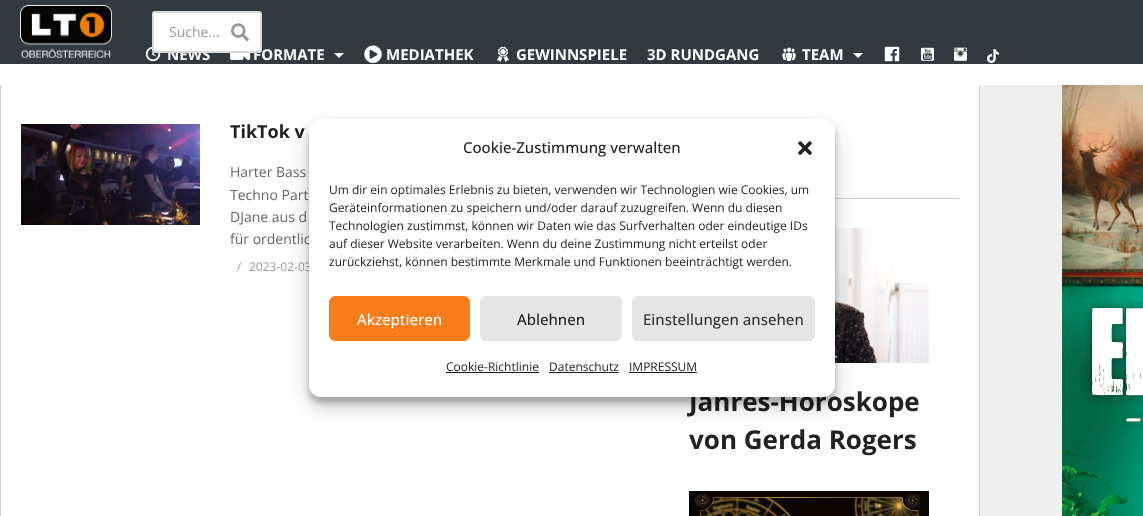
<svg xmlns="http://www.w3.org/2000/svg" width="1143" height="516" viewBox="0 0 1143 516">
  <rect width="100%" height="100%" fill="rgb(239,239,239)"/>
  <rect x="1" y="85" width="978" height="431" fill="rgb(255,255,255)"/>
  <rect x="0" y="64" width="1143" height="21" fill="rgb(255,255,255)"/>
  <rect x="0" y="0" width="1143" height="64" fill="rgb(52,57,63)"/>
  <image x="20" y="5" width="92" height="53" href="pic1.png"/>
  <image x="145" y="46" width="16" height="16" href="pic3.png"/>
  <rect x="152" y="11" width="110" height="42" rx="3" fill="rgb(255,255,255)"/>
  <g font-family="Open Sans" font-size="15" font-weight="bold" fill="rgb(255,255,255)">
    <text x="167" y="60">NEWS</text>
    <text x="253" y="60">FORMATE</text>
  </g>
  <rect x="153" y="12" width="108" height="40" rx="2" fill="none" stroke="rgba(0,0,0,0.15)" stroke-width="2"/>
  <text x="169" y="37" font-family="Open Sans" font-size="14" fill="rgb(153,153,153)">Suche...</text>
  <image x="231" y="23" width="18" height="19" href="pic2.png"/>
  <image x="230" y="53" width="21" height="7" href="pic4.png"/>
  <path d="M334 53H344L339 58Z" fill="rgb(255,255,255)"/>
  <image x="364" y="45" width="18" height="18" href="pic5.png"/>
  <text x="386" y="60" font-family="Open Sans" font-size="15" font-weight="bold" fill="rgb(255,255,255)">MEDIATHEK</text>
  <image x="496" y="46" width="14" height="17" href="pic6.png"/>
  <g font-family="Open Sans" font-size="15" font-weight="bold" fill="rgb(255,255,255)">
    <text x="516" y="60">GEWINNSPIELE</text>
    <text x="647" y="60">3D RUNDGANG</text>
  </g>
  <image x="782" y="47" width="14" height="15" href="pic7.png"/>
  <text x="802" y="60" font-family="Open Sans" font-size="15" font-weight="bold" fill="rgb(255,255,255)">TEAM</text>
  <path d="M853 53H863L858 58Z" fill="rgb(255,255,255)"/>
  <image x="884" y="46" width="16" height="16" href="pic8.png"/>
  <image x="921" y="47" width="13" height="14" href="pic9.png"/>
  <image x="954" y="47" width="13" height="14" href="pic10.png"/>
  <image x="987" y="49" width="12" height="14" href="pic11.png"/>
  <rect x="979" y="85" width="1" height="431" fill="rgb(204,204,204)"/>
  <rect x="0" y="85" width="1" height="431" fill="rgb(204,204,204)"/>
  <image x="21" y="124" width="179" height="101" href="pic12.png"/>
  <text x="230" y="138" font-family="Open Sans" font-size="18" font-weight="bold" fill="rgb(34,34,34)">TikTok v</text>
  <g font-family="Open Sans" font-size="14" fill="rgb(102,102,102)">
    <text>
      <tspan x="230" y="177">Harter Bass</tspan>
      <tspan x="230" y="200">Techno Part</tspan>
      <tspan x="230" y="222">DJane aus d</tspan>
      <tspan x="230" y="244">für ordentlic</tspan>
    </text>
  </g>
  <g font-family="Open Sans" font-size="12" fill="rgb(153,153,153)">
    <text x="237" y="271">/</text>
    <text x="249" y="271">2023-02-03</text>
  </g>
  <rect x="835" y="198" width="124" height="1" fill="rgb(204,204,204)"/>
  <image x="835" y="228" width="94" height="135" href="pic13.png"/>
  <g font-family="Open Sans" font-size="26" font-weight="bold" fill="rgb(34,34,34)">
    <text>
      <tspan x="689" y="411">Jahres-Horoskope</tspan>
      <tspan x="689" y="449">von Gerda Rogers</tspan>
    </text>
  </g>
  <image x="689" y="491" width="240" height="25" href="pic14.png"/>
  <image x="1062" y="85" width="81" height="431" href="pic15.png"/>
  <rect x="309" y="125" width="526" height="278" rx="12" fill="rgba(0,0,0,0.23)" filter="blur(3px)"/>
  <rect x="309" y="129" width="526" height="278" rx="12" fill="rgba(0,0,0,0.19)" filter="blur(10px)"/>
  <rect x="309" y="119" width="526" height="278" rx="12" fill="rgb(255,255,255)"/>
  <text x="463" y="153" font-family="Open Sans" font-size="15" font-weight="500" fill="rgb(34,34,34)">Cookie-Zustimmung verwalten</text>
  <image x="798" y="141" width="14" height="14" href="pic16.png"/>
  <g font-family="Open Sans" font-size="12" fill="rgb(34,34,34)">
    <text>
      <tspan x="329" y="194">Um dir ein optimales Erlebnis zu bieten, verwenden wir Technologien wie Cookies, um</tspan>
      <tspan x="329" y="212">Geräteinformationen zu speichern und/oder darauf zuzugreifen. Wenn du diesen</tspan>
      <tspan x="329" y="230">Technologien zustimmst, können wir Daten wie das Surfverhalten oder eindeutige IDs</tspan>
      <tspan x="329" y="248">auf dieser Website verarbeiten. Wenn du deine Zustimmung nicht erteilst oder</tspan>
      <tspan x="329" y="266">zurückziehst, können bestimmte Merkmale und Funktionen beeinträchtigt werden.</tspan>
    </text>
  </g>
  <rect x="329.5" y="296.5" width="140" height="44" rx="5.5" fill="rgb(250,125,25)" stroke="rgb(250,125,25)"/>
  <text x="357" y="325" font-family="Open Sans" font-size="15" font-weight="500" fill="rgb(255,255,255)">Akzeptieren</text>
  <rect x="480.5" y="296.5" width="141" height="44" rx="5.5" fill="rgb(229,229,229)" stroke="rgb(229,229,229)"/>
  <text x="517" y="325" font-family="Open Sans" font-size="15" font-weight="500" fill="rgb(34,34,34)">Ablehnen</text>
  <rect x="632.5" y="296.5" width="182" height="44" rx="5.5" fill="rgb(229,229,229)" stroke="rgb(229,229,229)"/>
  <text x="643" y="325" font-family="Open Sans" font-size="15" font-weight="500" fill="rgb(51,51,51)">Einstellungen ansehen</text>
  <text x="446" y="371" font-family="Open Sans" font-size="12" fill="rgb(25,30,35)">Cookie-Richtlinie</text>
  <rect x="446" y="372" width="93" height="1" fill="rgb(25,30,35)"/>
  <text x="549" y="371" font-family="Open Sans" font-size="12" fill="rgb(25,30,35)">Datenschutz</text>
  <rect x="549" y="372" width="70" height="1" fill="rgb(25,30,35)"/>
  <text x="629" y="371" font-family="Open Sans" font-size="12" fill="rgb(25,30,35)">IMPRESSUM</text>
  <rect x="629" y="372" width="68" height="1" fill="rgb(25,30,35)"/>
</svg>
